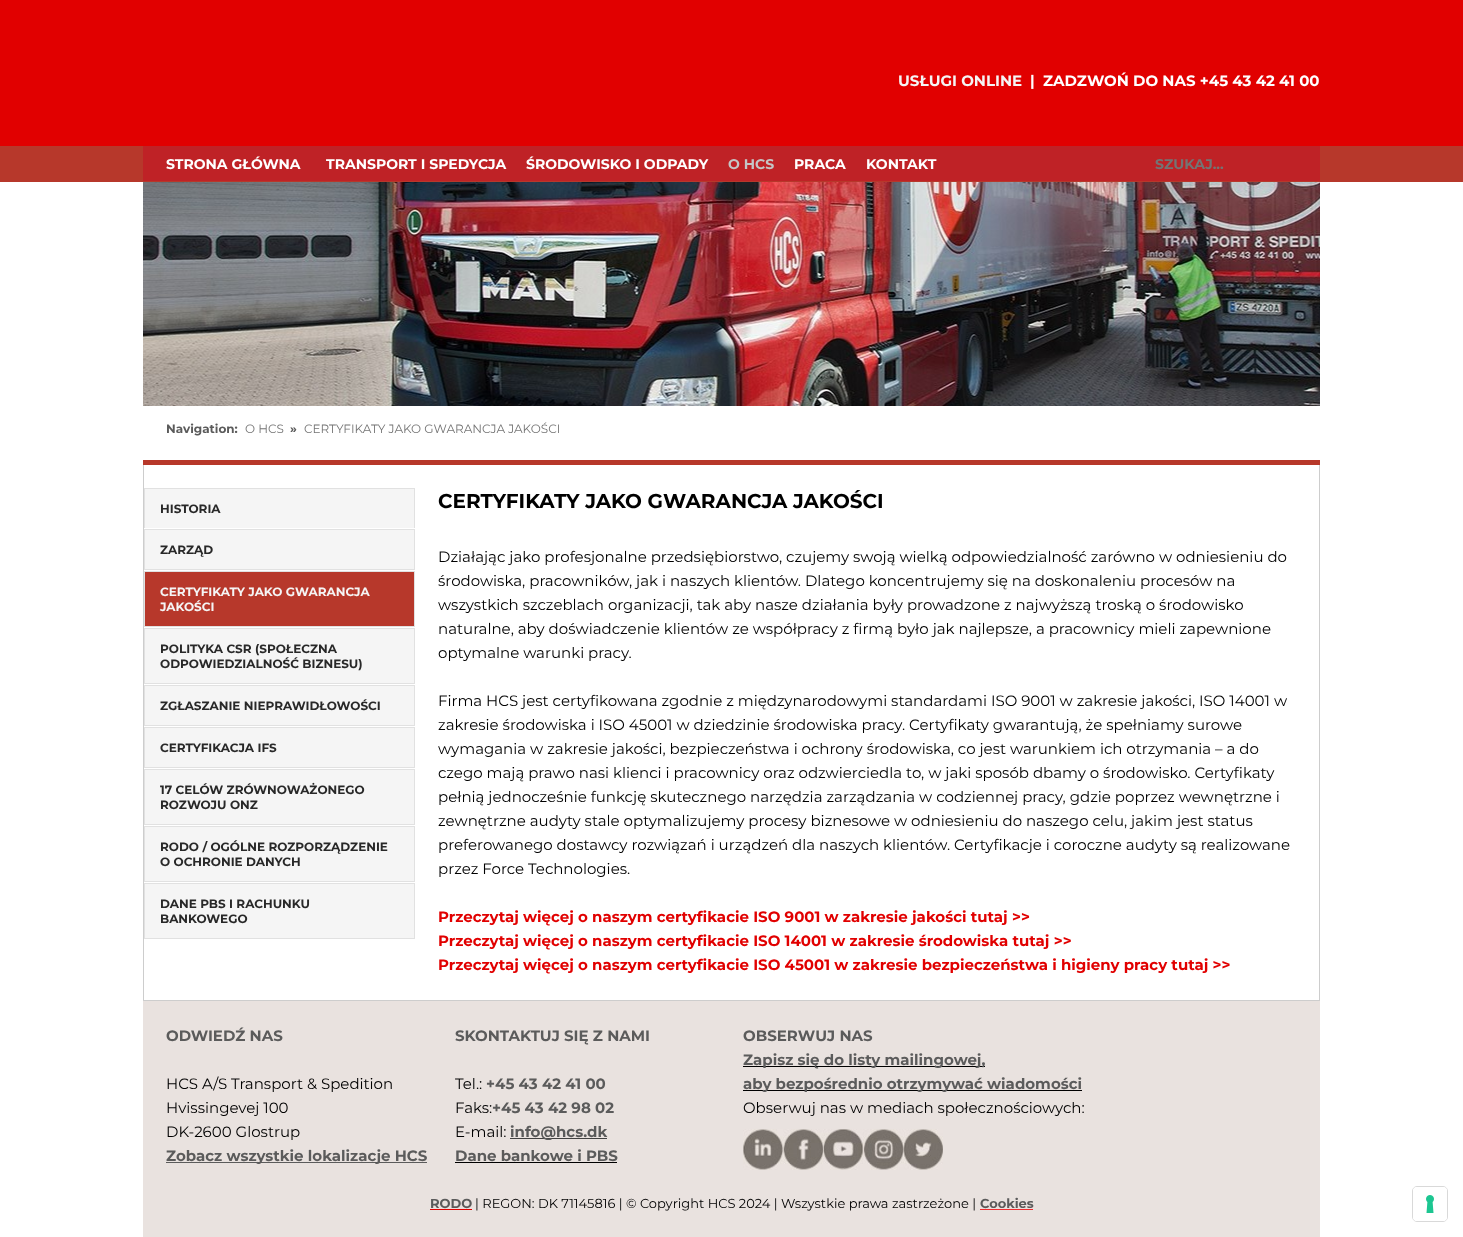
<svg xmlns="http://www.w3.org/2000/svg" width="1463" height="1237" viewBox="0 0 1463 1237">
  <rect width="100%" height="100%" fill="rgb(255,255,255)"/>
  <rect x="0" y="0" width="1463" height="146" fill="rgb(225,0,0)"/>
  <text x="898" y="86" font-family="Montserrat" font-size="15" font-weight="bold" fill="rgb(245,245,245)">USŁUGI ONLINE</text>
  <g font-family="Montserrat" font-size="15" font-weight="bold" fill="rgb(255,255,255)">
    <text x="1030" y="86">|</text>
    <text x="1043" y="86">ZADZWOŃ DO NAS +45 43 42 41 00</text>
  </g>
  <rect x="0" y="146" width="1463" height="36" fill="rgb(183,56,43)"/>
  <rect x="143" y="146" width="1177" height="35" fill="rgb(191,34,38)"/>
  <g font-family="Montserrat" font-size="14" font-weight="bold" fill="rgb(255,255,255)">
    <text x="166" y="169">STRONA GŁÓWNA</text>
    <text x="326" y="169">TRANSPORT I SPEDYCJA</text>
    <text x="526" y="169">ŚRODOWISKO I ODPADY</text>
  </g>
  <text x="728" y="169" font-family="Montserrat" font-size="14" font-weight="bold" fill="rgb(197,197,197)">O HCS</text>
  <g font-family="Montserrat" font-size="14" font-weight="bold" fill="rgb(255,255,255)">
    <text x="794" y="169">PRACA</text>
    <text x="866" y="169">KONTAKT</text>
  </g>
  <text x="1155" y="169" font-family="Montserrat" font-size="14" font-weight="bold" fill="rgb(116,116,116)">SZUKAJ...</text>
  <image x="143" y="182" width="1177" height="224" href="pic1.png"/>
  <rect x="143" y="460" width="1177" height="5" fill="rgb(183,56,42)"/>
  <text x="166" y="433" font-family="Montserrat" font-size="12" font-weight="bold" fill="rgb(91,91,91)">Navigation:</text>
  <text x="245" y="433" font-family="Montserrat" font-size="12" fill="rgb(116,116,116)">O HCS</text>
  <text x="290" y="433" font-family="Montserrat" font-size="12" font-weight="bold" fill="rgb(91,91,91)">»</text>
  <text x="304" y="433" font-family="Montserrat" font-size="12" fill="rgb(116,116,116)">CERTYFIKATY JAKO GWARANCJA JAKOŚCI</text>
  <rect x="1319" y="465" width="1" height="536" fill="rgb(205,205,205)"/>
  <rect x="143" y="1000" width="1177" height="1" fill="rgb(205,205,205)"/>
  <rect x="143" y="465" width="1" height="536" fill="rgb(205,205,205)"/>
  <rect x="145" y="489" width="269" height="39" fill="rgb(245,245,245)"/>
  <rect x="144" y="488" width="271" height="1" fill="rgb(225,225,225)"/>
  <rect x="414" y="488" width="1" height="40" fill="rgb(225,225,225)"/>
  <rect x="144" y="488" width="1" height="40" fill="rgb(225,225,225)"/>
  <text x="160" y="513" font-family="Montserrat" font-size="12" font-weight="bold" fill="rgb(40,40,40)">HISTORIA</text>
  <rect x="144.5" y="529.5" width="270" height="40" fill="rgb(245,245,245)" stroke="rgb(225,225,225)"/>
  <text x="160" y="554" font-family="Montserrat" font-size="12" font-weight="bold" fill="rgb(40,40,40)">ZARZĄD</text>
  <rect x="144.5" y="571.5" width="270" height="55" fill="rgb(183,56,43)" stroke="rgb(225,225,225)"/>
  <g font-family="Montserrat" font-size="12" font-weight="bold" fill="rgb(245,245,245)">
    <text>
      <tspan x="160" y="596">CERTYFIKATY JAKO GWARANCJA</tspan>
      <tspan x="160" y="611">JAKOŚCI</tspan>
    </text>
  </g>
  <rect x="144.5" y="628.5" width="270" height="55" fill="rgb(245,245,245)" stroke="rgb(225,225,225)"/>
  <g font-family="Montserrat" font-size="12" font-weight="bold" fill="rgb(40,40,40)">
    <text>
      <tspan x="160" y="653">POLITYKA CSR (SPOŁECZNA</tspan>
      <tspan x="160" y="668">ODPOWIEDZIALNOŚĆ BIZNESU)</tspan>
    </text>
  </g>
  <rect x="144.5" y="685.5" width="270" height="40" fill="rgb(245,245,245)" stroke="rgb(225,225,225)"/>
  <text x="160" y="710" font-family="Montserrat" font-size="12" font-weight="bold" fill="rgb(40,40,40)">ZGŁASZANIE NIEPRAWIDŁOWOŚCI</text>
  <rect x="144.5" y="727.5" width="270" height="40" fill="rgb(245,245,245)" stroke="rgb(225,225,225)"/>
  <text x="160" y="752" font-family="Montserrat" font-size="12" font-weight="bold" fill="rgb(40,40,40)">CERTYFIKACJA IFS</text>
  <rect x="144.5" y="769.5" width="270" height="55" fill="rgb(245,245,245)" stroke="rgb(225,225,225)"/>
  <g font-family="Montserrat" font-size="12" font-weight="bold" fill="rgb(40,40,40)">
    <text>
      <tspan x="160" y="794">17 CELÓW ZRÓWNOWAŻONEGO</tspan>
      <tspan x="160" y="809">ROZWOJU ONZ</tspan>
    </text>
  </g>
  <rect x="144.5" y="826.5" width="270" height="55" fill="rgb(245,245,245)" stroke="rgb(225,225,225)"/>
  <g font-family="Montserrat" font-size="12" font-weight="bold" fill="rgb(40,40,40)">
    <text>
      <tspan x="160" y="851">RODO / OGÓLNE ROZPORZĄDZENIE</tspan>
      <tspan x="160" y="866">O OCHRONIE DANYCH</tspan>
    </text>
  </g>
  <rect x="144.5" y="883.5" width="270" height="55" fill="rgb(245,245,245)" stroke="rgb(225,225,225)"/>
  <g font-family="Montserrat" font-size="12" font-weight="bold" fill="rgb(40,40,40)">
    <text>
      <tspan x="160" y="908">DANE PBS I RACHUNKU</tspan>
      <tspan x="160" y="923">BANKOWEGO</tspan>
    </text>
  </g>
  <text x="438" y="508" font-family="Montserrat" font-size="20" font-weight="bold" fill="rgb(0,0,0)">CERTYFIKATY JAKO GWARANCJA JAKOŚCI</text>
  <g font-family="Montserrat" font-size="15" fill="rgb(0,0,0)">
    <text>
      <tspan x="438" y="562">Działając jako profesjonalne przedsiębiorstwo, czujemy swoją wielką odpowiedzialność zarówno w odniesieniu do</tspan>
      <tspan x="438" y="586">środowiska, pracowników, jak i naszych klientów. Dlatego koncentrujemy się na doskonaleniu procesów na</tspan>
      <tspan x="438" y="610">wszystkich szczeblach organizacji, tak aby nasze działania były prowadzone z najwyższą troską o środowisko</tspan>
      <tspan x="438" y="634">naturalne, aby doświadczenie klientów ze współpracy z firmą było jak najlepsze, a pracownicy mieli zapewnione</tspan>
      <tspan x="438" y="658">optymalne warunki pracy.</tspan>
    </text>
    <text>
      <tspan x="438" y="706">Firma HCS jest certyfikowana zgodnie z międzynarodowymi standardami ISO 9001 w zakresie jakości, ISO 14001 w</tspan>
      <tspan x="438" y="730">zakresie środowiska i ISO 45001 w dziedzinie środowiska pracy. Certyfikaty gwarantują, że spełniamy surowe</tspan>
      <tspan x="438" y="754">wymagania w zakresie jakości, bezpieczeństwa i ochrony środowiska, co jest warunkiem ich otrzymania – a do</tspan>
      <tspan x="438" y="778">czego mają prawo nasi klienci i pracownicy oraz odzwierciedla to, w jaki sposób dbamy o środowisko. Certyfikaty</tspan>
      <tspan x="438" y="802">pełnią jednocześnie funkcję skutecznego narzędzia zarządzania w codziennej pracy, gdzie poprzez wewnętrzne i</tspan>
      <tspan x="438" y="826">zewnętrzne audyty stale optymalizujemy procesy biznesowe w odniesieniu do naszego celu, jakim jest status</tspan>
      <tspan x="438" y="850">preferowanego dostawcy rozwiązań i urządzeń dla naszych klientów. Certyfikacje i coroczne audyty są realizowane</tspan>
      <tspan x="438" y="874">przez Force Technologies.</tspan>
    </text>
  </g>
  <g font-family="Montserrat" font-size="15" font-weight="bold" fill="rgb(225,0,0)">
    <text>
      <tspan x="438" y="922">Przeczytaj więcej o naszym certyfikacie ISO 9001 w zakresie jakości tutaj &gt;&gt;</tspan>
      <tspan x="438" y="946">Przeczytaj więcej o naszym certyfikacie ISO 14001 w zakresie środowiska tutaj &gt;&gt;</tspan>
      <tspan x="438" y="970">Przeczytaj więcej o naszym certyfikacie ISO 45001 w zakresie bezpieczeństwa i higieny pracy tutaj &gt;&gt;</tspan>
    </text>
  </g>
  <rect x="143" y="1001" width="1177" height="236" fill="rgb(233,226,223)"/>
  <text x="166" y="1041" font-family="Montserrat" font-size="15" font-weight="bold" fill="rgb(91,91,91)">ODWIEDŹ NAS</text>
  <g font-family="Montserrat" font-size="15" fill="rgb(0,0,0)">
    <text>
      <tspan x="166" y="1089">HCS A/S Transport &amp; Spedition</tspan>
      <tspan x="166" y="1113">Hvissingevej 100</tspan>
      <tspan x="166" y="1137">DK-2600 Glostrup</tspan>
    </text>
  </g>
  <rect x="166" y="1162" width="261" height="1" fill="rgb(91,91,91)"/>
  <g font-family="Montserrat" font-size="15" font-weight="bold" fill="rgb(91,91,91)">
    <text x="166" y="1161">Zobacz wszystkie lokalizacje HCS</text>
    <text x="455" y="1041">SKONTAKTUJ SIĘ Z NAMI</text>
  </g>
  <text x="455" y="1089" font-family="Montserrat" font-size="15" fill="rgb(0,0,0)">Tel.:</text>
  <text x="486" y="1089" font-family="Montserrat" font-size="15" font-weight="bold" fill="rgb(91,91,91)">+45 43 42 41 00</text>
  <text x="455" y="1113" font-family="Montserrat" font-size="15" fill="rgb(0,0,0)">Faks:</text>
  <text x="492" y="1113" font-family="Montserrat" font-size="15" font-weight="bold" fill="rgb(91,91,91)">+45 43 42 98 02</text>
  <text x="455" y="1137" font-family="Montserrat" font-size="15" fill="rgb(0,0,0)">E-mail:</text>
  <rect x="510" y="1138" width="97" height="1" fill="rgb(65,65,65)"/>
  <g font-family="Montserrat" font-size="15" font-weight="bold" fill="rgb(91,91,91)">
    <text x="510" y="1137">info@hcs.dk</text>
    <text x="455" y="1161">Dane bankowe i PBS</text>
  </g>
  <rect x="455" y="1162" width="162" height="1" fill="rgb(0,0,0)"/>
  <text x="743" y="1041" font-family="Montserrat" font-size="15" font-weight="bold" fill="rgb(91,91,91)">OBSERWUJ NAS</text>
  <rect x="743" y="1066" width="242" height="1" fill="rgb(0,0,0)"/>
  <text x="743" y="1065" font-family="Montserrat" font-size="15" font-weight="bold" fill="rgb(91,91,91)">Zapisz się do listy mailingowej,</text>
  <rect x="743" y="1090" width="339" height="1" fill="rgb(0,0,0)"/>
  <text x="743" y="1089" font-family="Montserrat" font-size="15" font-weight="bold" fill="rgb(91,91,91)">aby bezpośrednio otrzymywać wiadomości</text>
  <text x="743" y="1113" font-family="Montserrat" font-size="15" fill="rgb(0,0,0)">Obserwuj nas w mediach społecznościowych:</text>
  <image x="743" y="1129" width="40" height="41" href="pic2.png"/>
  <image x="783" y="1129" width="40" height="41" href="pic3.png"/>
  <image x="823" y="1129" width="40" height="41" href="pic4.png"/>
  <image x="863" y="1129" width="40" height="41" href="pic5.png"/>
  <image x="903" y="1129" width="40" height="41" href="pic6.png"/>
  <text x="430" y="1208" font-family="Montserrat" font-size="13" font-weight="bold" fill="rgb(91,91,91)">RODO</text>
  <rect x="430" y="1209" width="42" height="1" fill="rgb(225,0,0)"/>
  <text x="475" y="1208" font-family="Montserrat" font-size="13" fill="rgb(0,0,0)">| REGON: DK 71145816 | © Copyright HCS 2024 | Wszystkie prawa zastrzeżone |</text>
  <text x="980" y="1208" font-family="Montserrat" font-size="13" font-weight="bold" fill="rgb(91,91,91)">Cookies</text>
  <rect x="980" y="1209" width="53" height="1" fill="rgb(239,43,47)"/>
  <rect x="1412.5" y="1186.5" width="35" height="35" rx="4.5" fill="none" stroke="rgb(217,217,217)"/>
  <rect x="1413" y="1187" width="34" height="34" rx="4" fill="rgb(255,255,255)"/>
  <image x="1426" y="1195" width="8" height="18" href="pic7.png"/>
</svg>
